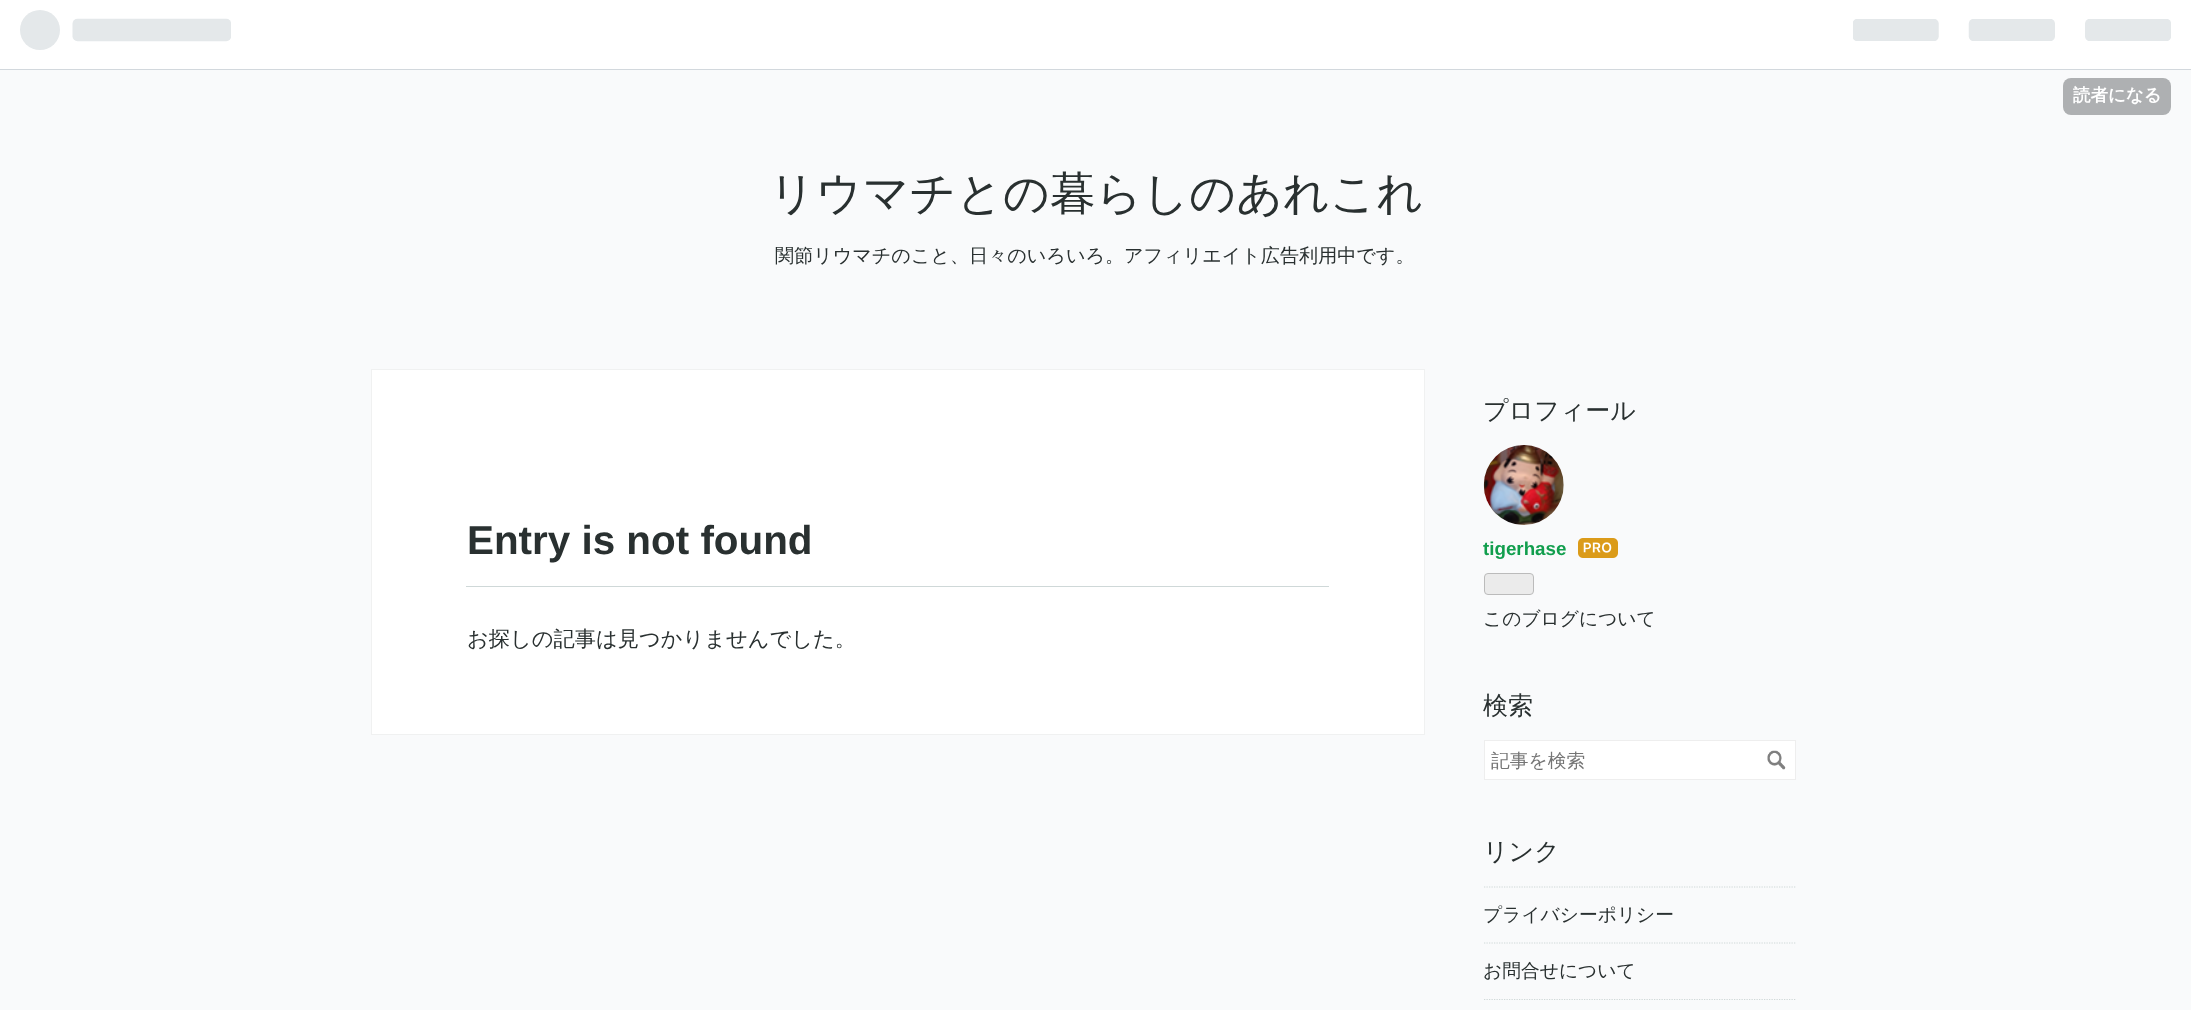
<svg xmlns="http://www.w3.org/2000/svg" width="2191" height="1010" viewBox="0 0 2191 1010">
  <rect width="100%" height="100%" fill="rgb(249,250,251)"/>
  <rect x="0" y="0" width="2191" height="69" fill="rgb(255,255,255)"/>
  <rect x="0" y="69" width="2191" height="1" fill="rgb(210,216,221)"/>
  <image x="20" y="10" width="211" height="40" href="pic1.png"/>
  <image x="1853" y="19" width="318" height="22" href="pic2.png"/>
  <rect x="2063" y="78" width="108" height="37" rx="8" fill="rgb(174,176,178)"/>
  <text x="2073" y="101" font-family="WenQuanYi Zen Hei" font-size="17.5" font-weight="bold" fill="rgb(255,255,255)">読者になる</text>
  <text x="769" y="209" font-family="WenQuanYi Zen Hei" font-size="45.75" font-weight="500" fill="rgb(41,48,48)">リウマチとの暮らしのあれこれ</text>
  <text x="775" y="262" font-family="WenQuanYi Zen Hei" font-size="19.1" font-weight="500" fill="rgb(41,48,48)">関節リウマチのこと、日々のいろいろ。アフィリエイト広告利用中です。</text>
  <rect x="371.5" y="369.5" width="1053" height="365" fill="rgb(255,255,255)" stroke="rgb(240,241,241)"/>
  <rect x="466" y="586" width="863" height="1" fill="rgb(207,216,216)"/>
  <text x="467" y="554" font-family="Liberation Sans" font-size="40.4" font-weight="bold" fill="rgb(41,48,48)">Entry is not found</text>
  <text x="467" y="646" font-family="WenQuanYi Zen Hei" font-size="21.25" font-weight="500" fill="rgb(41,48,48)">お探しの記事は見つかりませんでした。</text>
  <text x="1483" y="419" font-family="WenQuanYi Zen Hei" font-size="25" font-weight="500" fill="rgb(41,48,48)">プロフィール</text>
  <image x="1483" y="445" width="81" height="80" href="pic3.png"/>
  <text x="1483" y="555" font-family="Liberation Sans" font-size="18.75" font-weight="bold" fill="rgb(17,158,77)">tigerhase</text>
  <image x="1578" y="538" width="40" height="20" href="pic4.png"/>
  <rect x="1484.5" y="573.5" width="49" height="21" rx="3.5" fill="rgb(235,235,235)" stroke="rgb(187,187,187)"/>
  <text x="1483" y="625" font-family="WenQuanYi Zen Hei" font-size="18.75" font-weight="500" fill="rgb(41,48,48)">このブログについて</text>
  <text x="1483" y="714" font-family="WenQuanYi Zen Hei" font-size="25" font-weight="500" fill="rgb(41,48,48)">検索</text>
  <rect x="1484.5" y="740.5" width="311" height="39" fill="rgb(255,255,255)" stroke="rgb(238,238,238)"/>
  <text x="1491" y="767" font-family="WenQuanYi Zen Hei" font-size="18.75" font-weight="500" fill="rgb(117,117,117)">記事を検索</text>
  <image x="1767" y="750" width="19" height="20" href="pic5.png"/>
  <text x="1483" y="860" font-family="WenQuanYi Zen Hei" font-size="25" font-weight="500" fill="rgb(41,48,48)">リンク</text>
  <path d="M1484 887H1796" fill="none" stroke="rgb(207,216,216)" stroke-width="1.2" stroke-dasharray="1.25 1.25"/>
  <text x="1483" y="921" font-family="WenQuanYi Zen Hei" font-size="18.75" font-weight="500" fill="rgb(41,48,48)">プライバシーポリシー</text>
  <path d="M1484 943H1796" fill="none" stroke="rgb(207,216,216)" stroke-width="1.2" stroke-dasharray="1.25 1.25"/>
  <path d="M1484 999.5H1796" fill="none" stroke="rgb(207,216,216)" stroke-width="1.2" stroke-dasharray="1.25 1.25"/>
  <text x="1483" y="977" font-family="WenQuanYi Zen Hei" font-size="18.75" font-weight="500" fill="rgb(41,48,48)">お問合せについて</text>
</svg>
